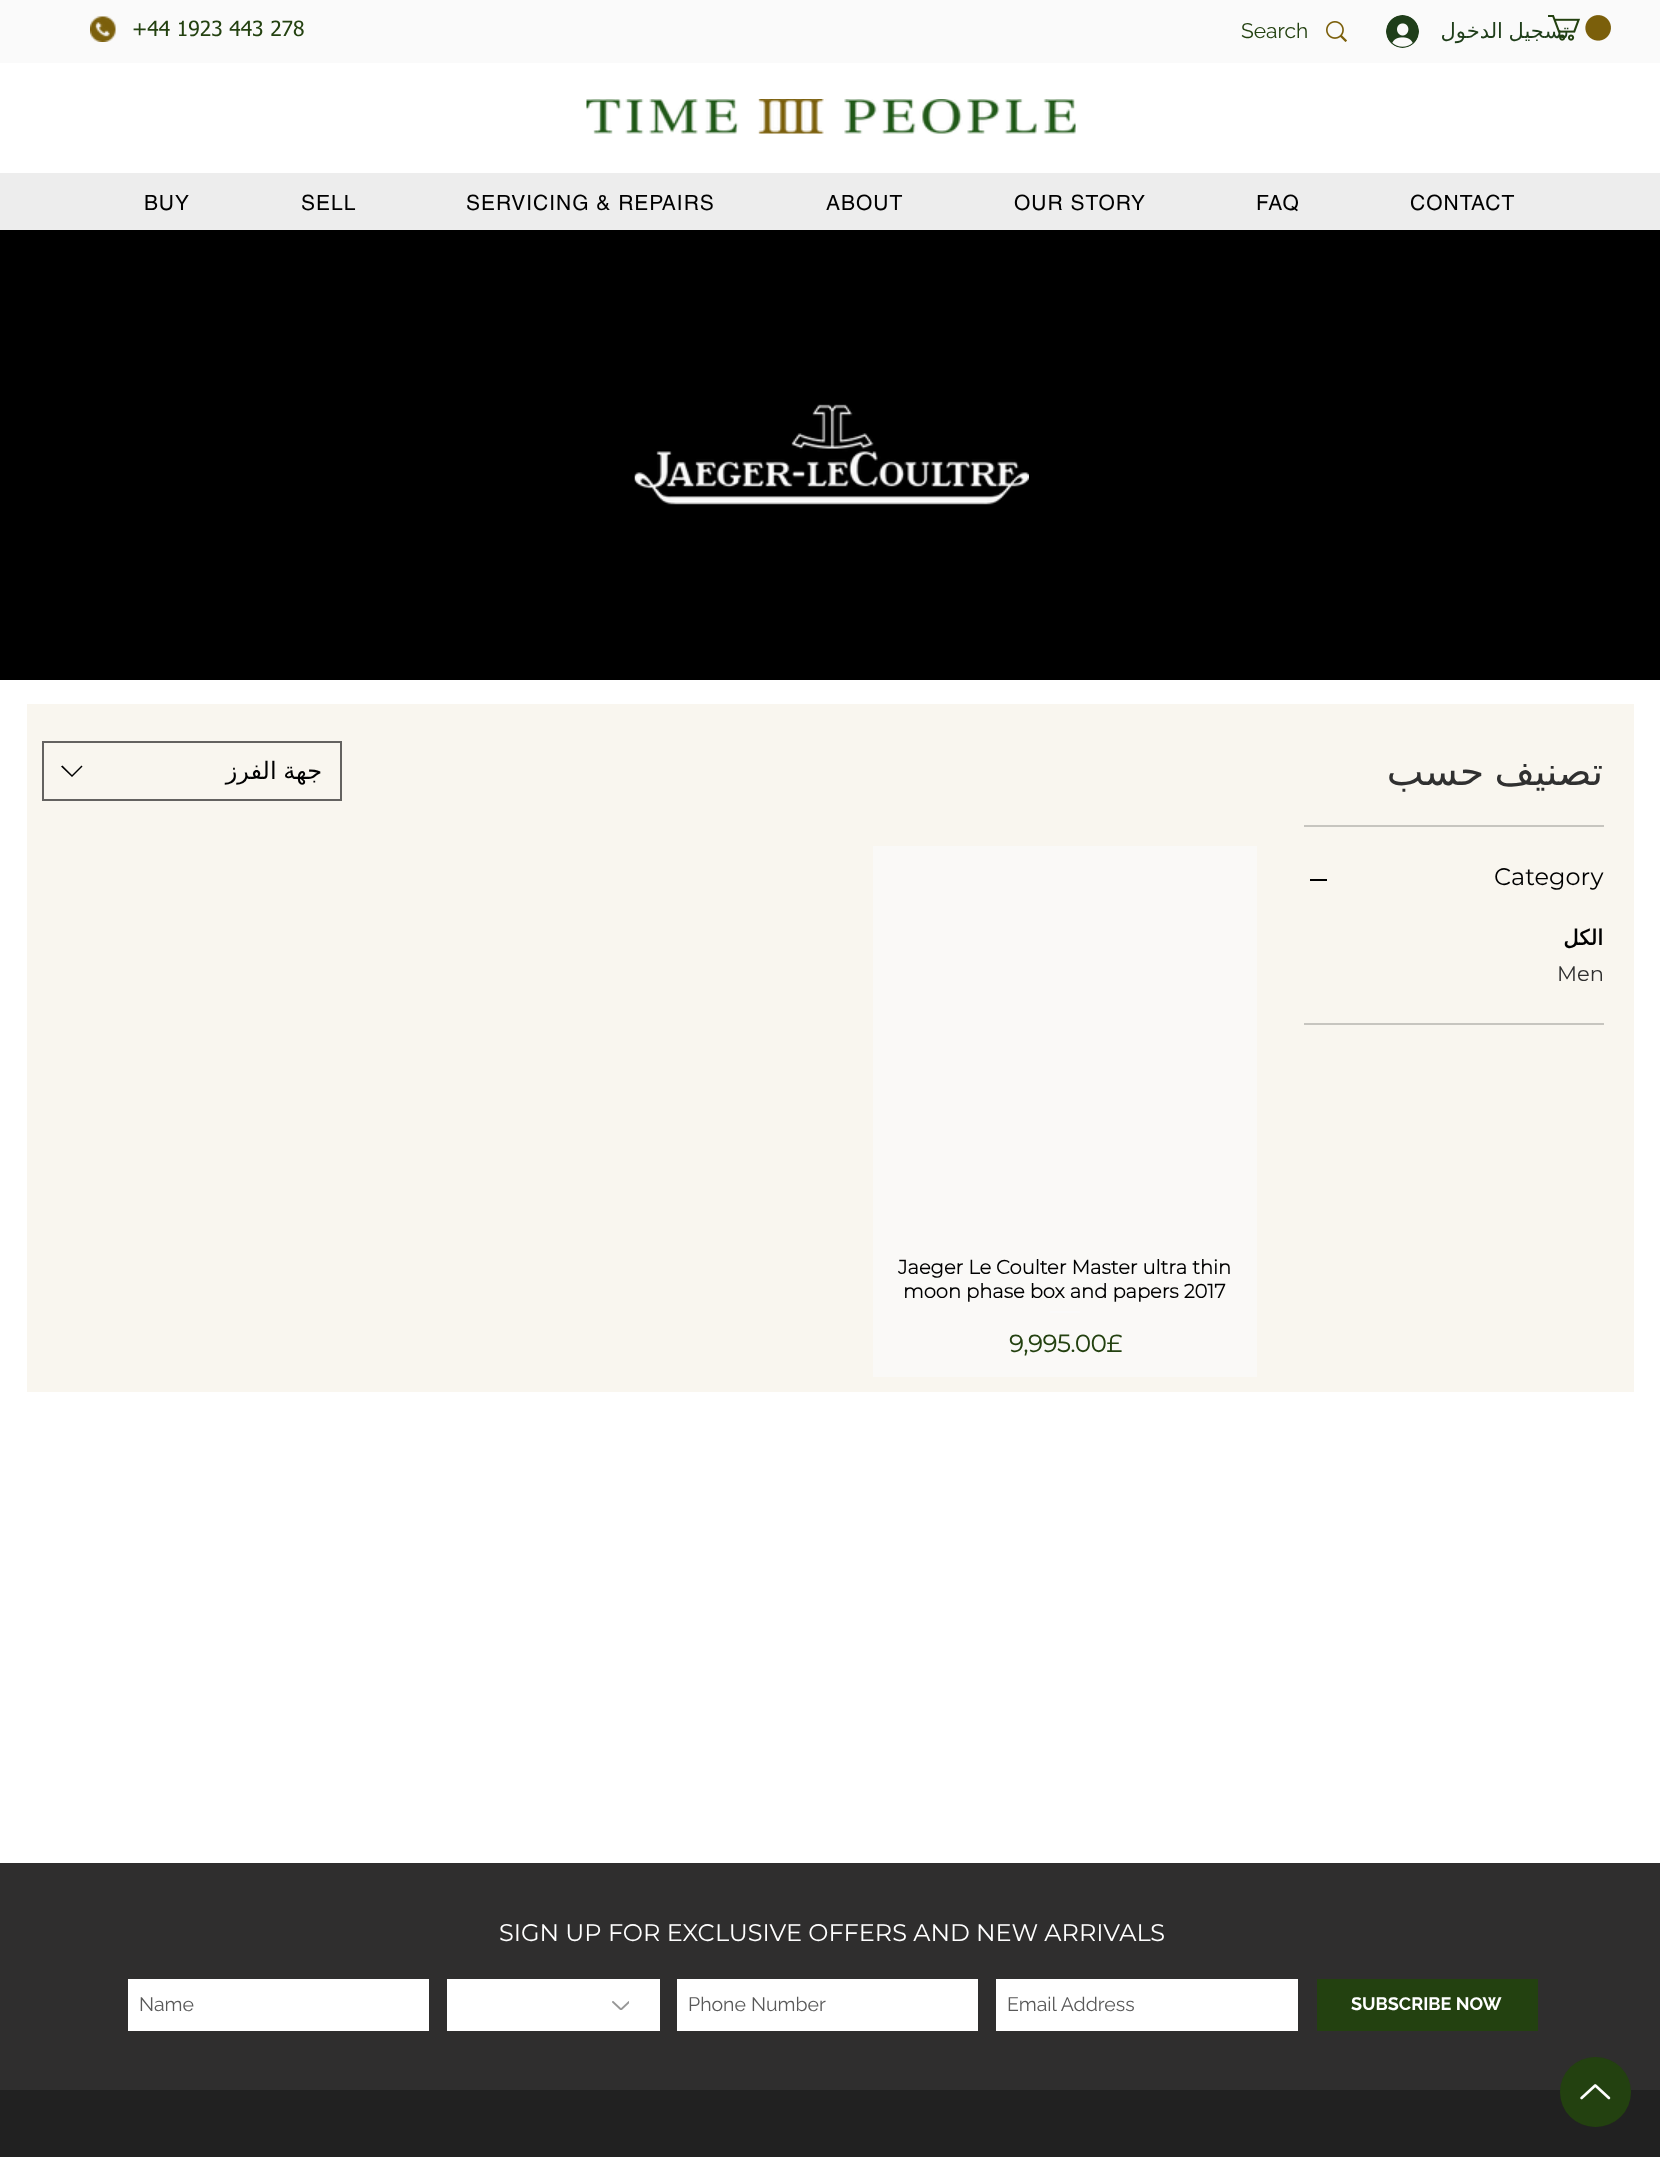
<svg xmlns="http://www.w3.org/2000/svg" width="1660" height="2157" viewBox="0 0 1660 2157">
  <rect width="100%" height="100%" fill="rgb(255,255,255)"/>
  <rect x="0" y="0" width="1660" height="63" fill="rgb(250,250,250)"/>
  <image x="90" y="16" width="26" height="26" href="pic1.png"/>
  <text x="132" y="36" font-family="tahoma" font-size="21" fill="rgb(35,65,16)">+44 1923 443 278</text>
  <text x="1241" y="38" font-family="Raleway" font-size="21" fill="rgb(35,65,16)">Search</text>
  <image x="1326" y="21" width="21" height="21" href="pic2.png"/>
  <image x="1386" y="15" width="33" height="33" href="pic3.png"/>
  <text x="1569" y="38" word-spacing="-1" font-family="DejaVu Sans" font-size="21" direction="rtl" fill="rgb(31,62,26)">تسجيل الدخول</text>
  <image x="1548" y="15" width="63" height="26" href="pic4.png"/>
  <image x="586" y="99" width="490" height="35" href="pic5.png"/>
  <rect x="0" y="173" width="1660" height="57" fill="rgb(237,237,237)"/>
  <g font-family="helvetica" font-size="21" letter-spacing="1" fill="rgb(0,0,0)">
    <text x="144" y="210">BUY</text>
    <text x="301" y="210">SELL</text>
    <text x="466" y="210">SERVICING &amp; REPAIRS</text>
    <text x="826" y="210">ABOUT</text>
    <text x="1014" y="210">OUR STORY</text>
    <text x="1256" y="210">FAQ</text>
    <text x="1410" y="210">CONTACT</text>
  </g>
  <rect x="0" y="230" width="1660" height="450" fill="rgb(0,0,0)"/>
  <image x="634" y="404" width="395" height="101" href="pic6.png"/>
  <rect x="27" y="704" width="1607" height="688" fill="rgb(249,246,239)"/>
  <rect x="43" y="742" width="298" height="58" fill="none" stroke="rgb(100,98,96)" stroke-width="2"/>
  <path d="M81.5 765.5L82.5 766.5L72 777L61 766.5L62.5 765.5L72 775Z" fill="rgb(0,0,0)" fill-rule="evenodd"/>
  <text x="322" y="779" word-spacing="-1" font-family="DejaVu Sans" font-size="24" direction="rtl" fill="rgb(0,0,0)">جهة الفرز</text>
  <rect x="873" y="846" width="384" height="531" fill="rgb(250,249,247)"/>
  <g font-family="Montserrat" font-size="19.5" font-weight="bold" fill="rgb(0,0,0)">
    <text x="898" y="1274">Jaeger Le Coulter Master ultra thin</text>
    <text x="903" y="1298">moon phase box and papers 2017</text>
  </g>
  <rect x="1050" y="1311" width="30" height="2" fill="rgb(250,250,250)"/>
  <text x="1009" y="1352" font-family="Montserrat" font-size="24" font-weight="bold" fill="rgb(35,65,16)">9,995.00£</text>
  <rect x="1304" y="825" width="300" height="2" fill="rgb(199,197,191)"/>
  <text x="1603" y="785" word-spacing="-2" font-family="DejaVu Sans" font-size="39" direction="rtl" fill="rgb(48,48,48)">تصنيف حسب</text>
  <rect x="1304" y="1023" width="300" height="2" fill="rgb(199,197,191)"/>
  <rect x="1310" y="879" width="17" height="2" fill="rgb(0,0,0)"/>
  <text x="1494" y="885" font-family="Montserrat" font-size="24" fill="rgb(0,0,0)">Category</text>
  <text x="1603" y="945" font-family="DejaVu Sans" font-size="21" font-weight="bold" direction="rtl" fill="rgb(0,0,0)">الكل</text>
  <text x="1557" y="981" font-family="Montserrat" font-size="21" fill="rgb(48,48,48)">Men</text>
  <rect x="0" y="1863" width="1660" height="227" fill="rgb(47,46,46)"/>
  <text x="499" y="1941" font-family="Montserrat" font-size="24" fill="rgb(255,255,255)">SIGN UP FOR EXCLUSIVE OFFERS AND NEW ARRIVALS</text>
  <rect x="128" y="1979" width="301" height="52" fill="rgb(255,255,255)"/>
  <text x="139" y="2011" font-family="Raleway" font-size="19.5" fill="rgb(89,89,89)">Name</text>
  <rect x="447" y="1979" width="213" height="52" fill="rgb(255,255,255)"/>
  <image x="612" y="2001" width="17" height="9" href="pic7.png"/>
  <rect x="677" y="1979" width="301" height="52" fill="rgb(255,255,255)"/>
  <text x="688" y="2011" font-family="Raleway" font-size="19.5" fill="rgb(89,89,89)">Phone Number</text>
  <rect x="996" y="1979" width="302" height="52" fill="rgb(255,255,255)"/>
  <text x="1007" y="2011" font-family="Raleway" font-size="19.5" fill="rgb(89,89,89)">Email Address</text>
  <rect x="1317" y="1979" width="221" height="52" fill="rgb(35,65,16)"/>
  <text x="1351" y="2010" font-family="Raleway" font-size="18" font-weight="bold" fill="rgb(255,255,255)">SUBSCRIBE NOW</text>
  <rect x="0" y="2090" width="1660" height="67" fill="rgb(33,33,33)"/>
  <rect x="1560" y="2057" width="71" height="70" rx="35" fill="rgb(35,65,16)"/>
  <image x="1580" y="2084" width="31" height="16" href="pic8.png"/>
</svg>
